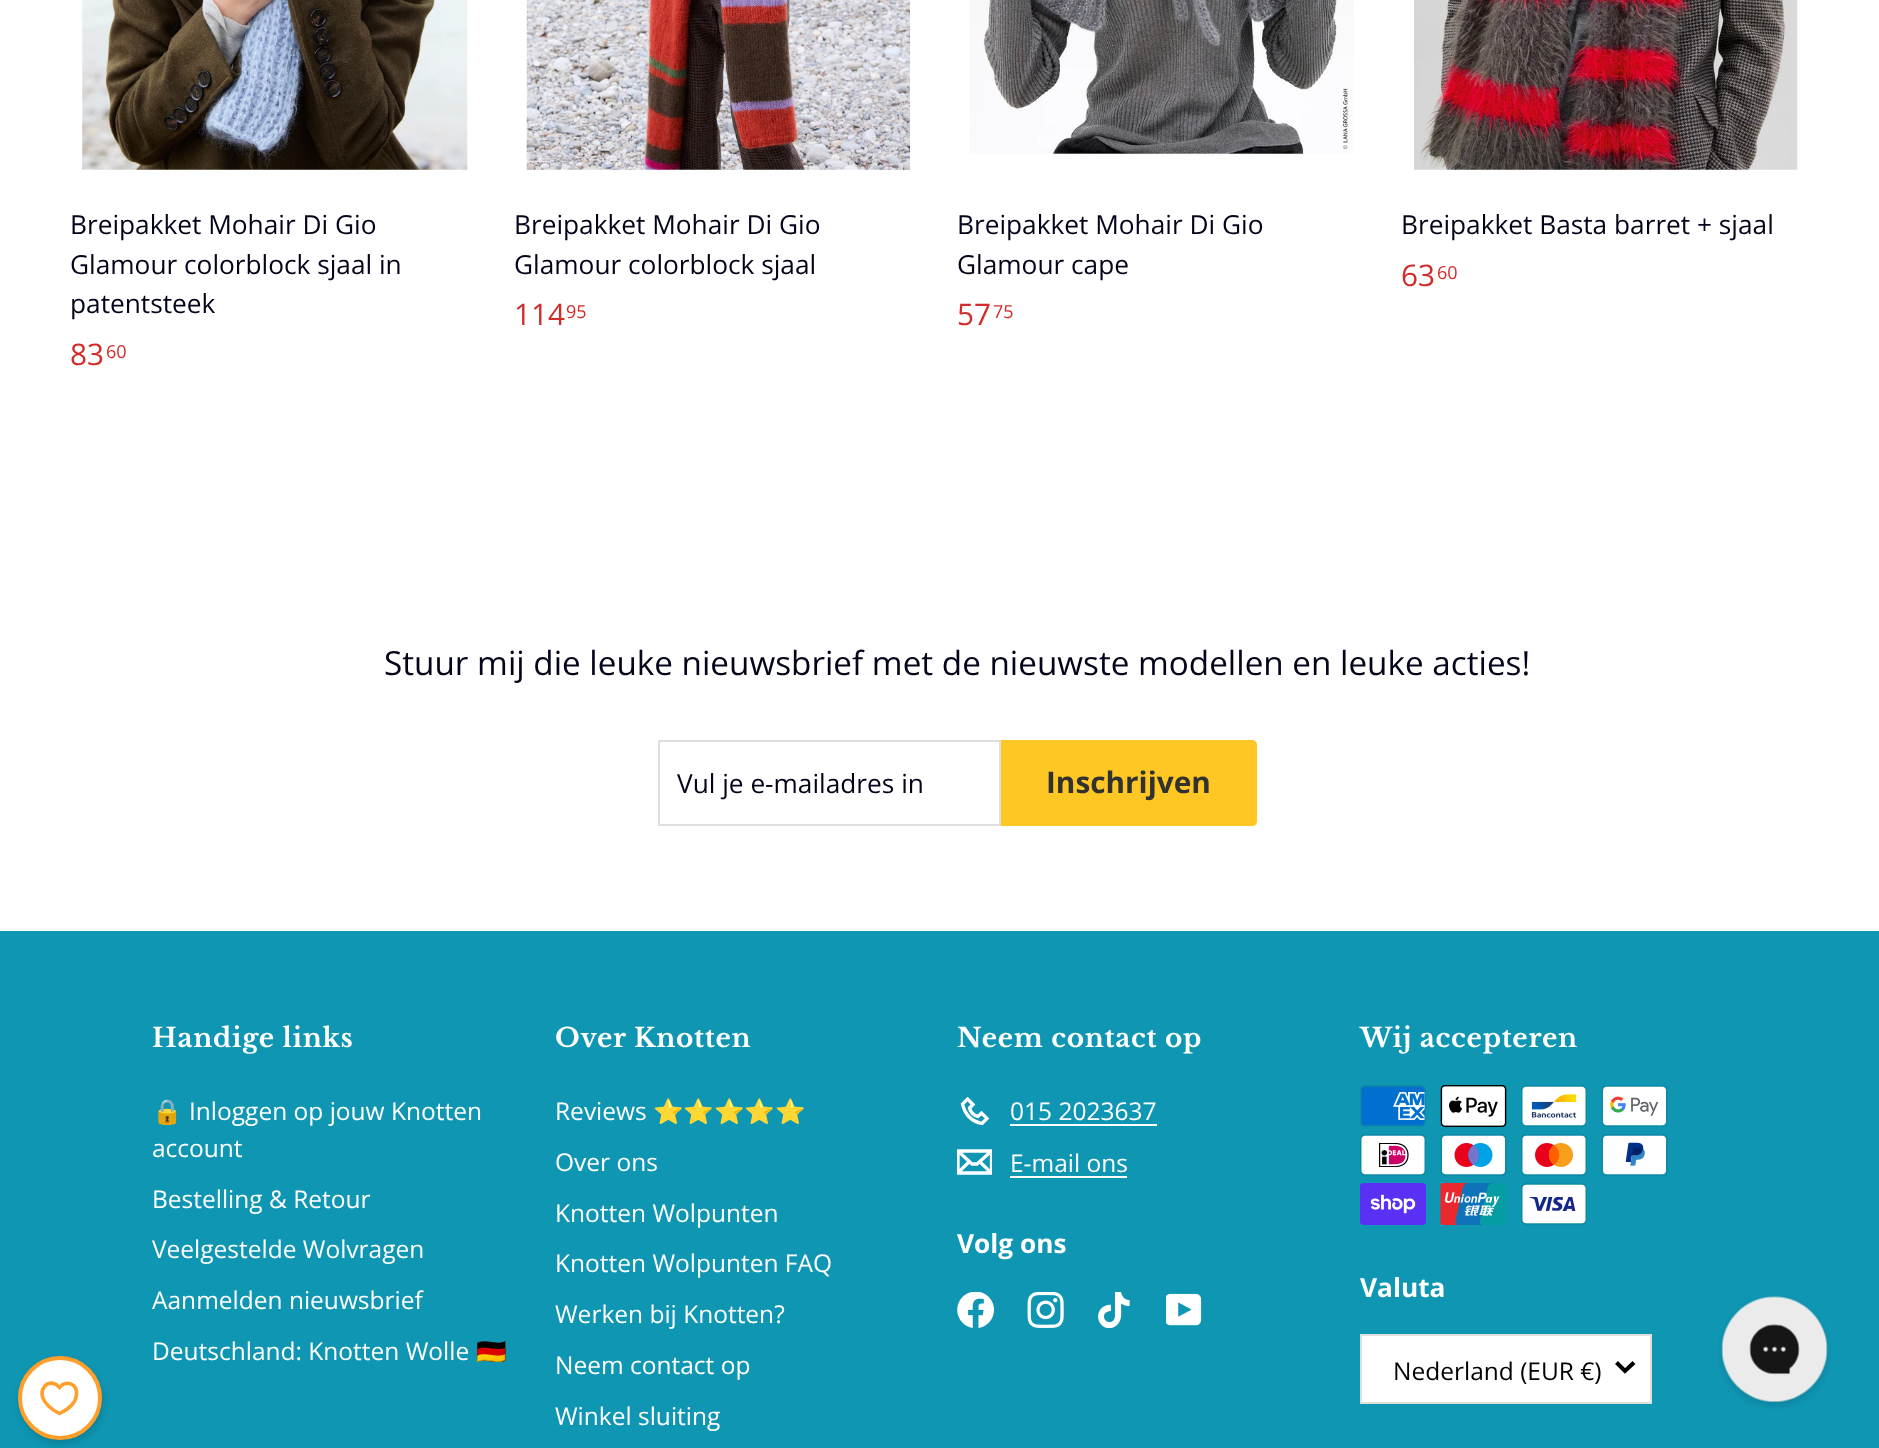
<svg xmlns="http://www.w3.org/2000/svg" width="1879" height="1448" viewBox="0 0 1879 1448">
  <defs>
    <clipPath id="clip1"><rect x="957" y="1145" width="35" height="35"/></clipPath>
  </defs>
  <rect width="100%" height="100%" fill="rgb(255,255,255)"/>
  <rect x="0" y="931" width="1879" height="517" fill="rgb(15,150,179)"/>
  <rect x="19" y="1360" width="84" height="84" rx="42" fill="rgba(0,0,0,0.15)" filter="blur(3.5px)"/>
  <circle cx="60" cy="1398" r="40" fill="rgb(255,255,255)" stroke="rgb(255,158,41)" stroke-width="4"/>
  <path d="M59.5 1413.5C52.5 1410 45 1404.5 42.5 1397C40.5 1389 46.5 1380.5 55 1384C57 1384.5 58 1386 59.5 1387.5C61 1386 62 1384.5 64 1384C71.5 1381 77.5 1387.5 76.5 1395C75.5 1403.5 67 1410 59.5 1413.5Z" fill="none" stroke="rgb(255,158,41)" stroke-width="3.5"/>
  <image x="82" y="0" width="386" height="170" href="pic1.png"/>
  <g font-family="Open Sans" font-size="26.25" fill="rgb(3,3,26)">
    <text>
      <tspan x="70" y="234">Breipakket Mohair Di Gio</tspan>
      <tspan x="70" y="274">Glamour colorblock sjaal in</tspan>
      <tspan x="70" y="313">patentsteek</tspan>
    </text>
  </g>
  <text x="70" y="365" font-family="Open Sans" font-size="29.75" fill="rgb(209,44,42)">83</text>
  <text x="106" y="358" font-family="Open Sans" font-size="18" fill="rgb(209,44,42)">60</text>
  <image x="526" y="0" width="384" height="170" href="pic2.png"/>
  <g font-family="Open Sans" font-size="26.25" fill="rgb(3,3,26)">
    <text>
      <tspan x="514" y="234">Breipakket Mohair Di Gio</tspan>
      <tspan x="514" y="274">Glamour colorblock sjaal</tspan>
    </text>
  </g>
  <text x="514" y="325" font-family="Open Sans" font-size="29.75" fill="rgb(209,44,42)">114</text>
  <text x="566" y="318" font-family="Open Sans" font-size="18" fill="rgb(209,44,42)">95</text>
  <image x="969" y="0" width="385" height="156" href="pic3.png"/>
  <g font-family="Open Sans" font-size="26.25" fill="rgb(3,3,26)">
    <text>
      <tspan x="957" y="234">Breipakket Mohair Di Gio</tspan>
      <tspan x="957" y="274">Glamour cape</tspan>
    </text>
  </g>
  <text x="957" y="325" font-family="Open Sans" font-size="29.75" fill="rgb(209,44,42)">57</text>
  <text x="993" y="318" font-family="Open Sans" font-size="18" fill="rgb(209,44,42)">75</text>
  <image x="1414" y="0" width="384" height="170" href="pic4.png"/>
  <text x="1401" y="234" font-family="Open Sans" font-size="26.25" fill="rgb(3,3,26)">Breipakket Basta barret + sjaal</text>
  <text x="1401" y="286" font-family="Open Sans" font-size="29.75" fill="rgb(209,44,42)">63</text>
  <text x="1437" y="279" font-family="Open Sans" font-size="18" fill="rgb(209,44,42)">60</text>
  <text x="384" y="675" font-family="Open Sans" font-size="33.25" fill="rgb(3,3,26)">Stuur mij die leuke nieuwsbrief met de nieuwste modellen en leuke acties!</text>
  <rect x="659" y="741" width="341" height="84" fill="none" stroke="rgb(223,223,223)" stroke-width="2"/>
  <text x="677" y="793" font-family="Open Sans" font-size="26.25" fill="rgb(3,3,26)">Vul je e-mailadres in</text>
  <path d="M1001 740H1252C1255 740 1257 742 1257 745V821C1257 824 1255 826 1252 826H1001Z" fill="rgb(255,199,35)"/>
  <text x="1046" y="793" font-family="Open Sans" font-size="29.75" font-weight="bold" fill="rgb(49,49,47)">Inschrijven</text>
  <text x="152" y="1047" font-family="Libre Baskerville" font-size="26.25" font-weight="bold" letter-spacing="0.7" fill="rgb(255,255,255)">Handige links</text>
  <text x="152" y="1120" font-family="Noto Color Emoji" font-size="24.5" fill="rgb(255,255,255)">🔒</text>
  <g font-family="Open Sans" font-size="24.5" fill="rgb(255,255,255)">
    <text x="189" y="1120">Inloggen op jouw Knotten</text>
    <text x="152" y="1157">account</text>
    <text x="152" y="1208">Bestelling &amp; Retour</text>
    <text x="152" y="1258">Veelgestelde Wolvragen</text>
    <text x="152" y="1309">Aanmelden nieuwsbrief</text>
    <text x="152" y="1360">Deutschland: Knotten Wolle</text>
  </g>
  <text x="476" y="1360" font-family="Noto Color Emoji" font-size="24.5" fill="rgb(255,255,255)">🇩🇪</text>
  <text x="555" y="1047" font-family="Libre Baskerville" font-size="26.25" font-weight="bold" letter-spacing="0.7" fill="rgb(255,255,255)">Over Knotten</text>
  <text x="555" y="1120" font-family="Open Sans" font-size="24.5" fill="rgb(255,255,255)">Reviews</text>
  <text x="653" y="1120" font-family="Noto Color Emoji" font-size="24.5" fill="rgb(255,255,255)">⭐⭐⭐⭐⭐</text>
  <g font-family="Open Sans" font-size="24.5" fill="rgb(255,255,255)">
    <text x="555" y="1171">Over ons</text>
    <text x="555" y="1222">Knotten Wolpunten</text>
    <text x="555" y="1272">Knotten Wolpunten FAQ</text>
    <text x="555" y="1323">Werken bij Knotten?</text>
    <text x="555" y="1374">Neem contact op</text>
    <text x="555" y="1425">Winkel sluiting</text>
  </g>
  <text x="957" y="1047" font-family="Libre Baskerville" font-size="26.25" font-weight="bold" letter-spacing="0.7" fill="rgb(255,255,255)">Neem contact op</text>
  <path d="M967.5 1099L973 1104.5L969.5 1108C970.5 1112 973 1115 978 1116.5L981.5 1113L987 1118.5L982 1123.5C971.5 1121.5 965 1114.5 962.5 1104Z" fill="none" stroke="rgb(255,255,255)" stroke-width="3.3"/>
  <text x="1010" y="1120" font-family="Open Sans" font-size="24.5" fill="rgb(255,255,255)">015 2023637</text>
  <rect x="1010" y="1124" width="147" height="2" fill="rgb(255,255,255)"/>
  <g clip-path="url(#clip1)">
    <path d="M991.5 1173H958V1151H991.5ZM958 1151L972 1164H977L991.5 1151M969 1162L958 1172.5M991.5 1173L980 1162" fill="none" stroke="rgb(255,255,255)" stroke-width="3.3"/>
  </g>
  <text x="1010" y="1172" font-family="Open Sans" font-size="24.5" fill="rgb(255,255,255)">E-mail ons</text>
  <rect x="1010" y="1176" width="117" height="2" fill="rgb(255,255,255)"/>
  <text x="957" y="1253" font-family="Open Sans" font-size="26.25" font-weight="bold" fill="rgb(255,255,255)">Volg ons</text>
  <image x="957" y="1292" width="37" height="36" href="pic5.png"/>
  <image x="1027" y="1292" width="37" height="36" href="pic6.png"/>
  <image x="1098" y="1292" width="32" height="36" href="pic7.png"/>
  <image x="1166" y="1293" width="36" height="33" href="pic8.png"/>
  <text x="1360" y="1047" font-family="Libre Baskerville" font-size="26.25" font-weight="bold" letter-spacing="0.7" fill="rgb(255,255,255)">Wij accepteren</text>
  <image x="1360" y="1085" width="66" height="42" href="pic9.png"/>
  <image x="1440" y="1085" width="67" height="42" href="pic10.png"/>
  <image x="1521" y="1085" width="66" height="42" href="pic11.png"/>
  <image x="1601" y="1085" width="67" height="42" href="pic12.png"/>
  <image x="1360" y="1134" width="66" height="42" href="pic13.png"/>
  <image x="1440" y="1134" width="67" height="42" href="pic14.png"/>
  <image x="1521" y="1134" width="66" height="42" href="pic15.png"/>
  <image x="1601" y="1134" width="67" height="42" href="pic16.png"/>
  <image x="1360" y="1183" width="66" height="42" href="pic17.png"/>
  <image x="1440" y="1183" width="67" height="42" href="pic18.png"/>
  <image x="1521" y="1183" width="66" height="42" href="pic19.png"/>
  <text x="1360" y="1297" font-family="Open Sans" font-size="26.25" font-weight="bold" fill="rgb(255,255,255)">Valuta</text>
  <rect x="1361" y="1335" width="290" height="68" fill="rgb(255,255,255)" stroke="rgb(223,223,223)" stroke-width="2"/>
  <text x="1393" y="1380" font-family="Open Sans" font-size="24.5" fill="rgb(0,0,0)">Nederland (EUR €)</text>
  <path d="M1616.5 1362.5L1625 1371L1634 1362.5" fill="none" stroke="rgb(0,0,0)" stroke-width="4.1"/>
  <image x="1718" y="1296" width="113" height="113" href="pic20.png"/>
</svg>
